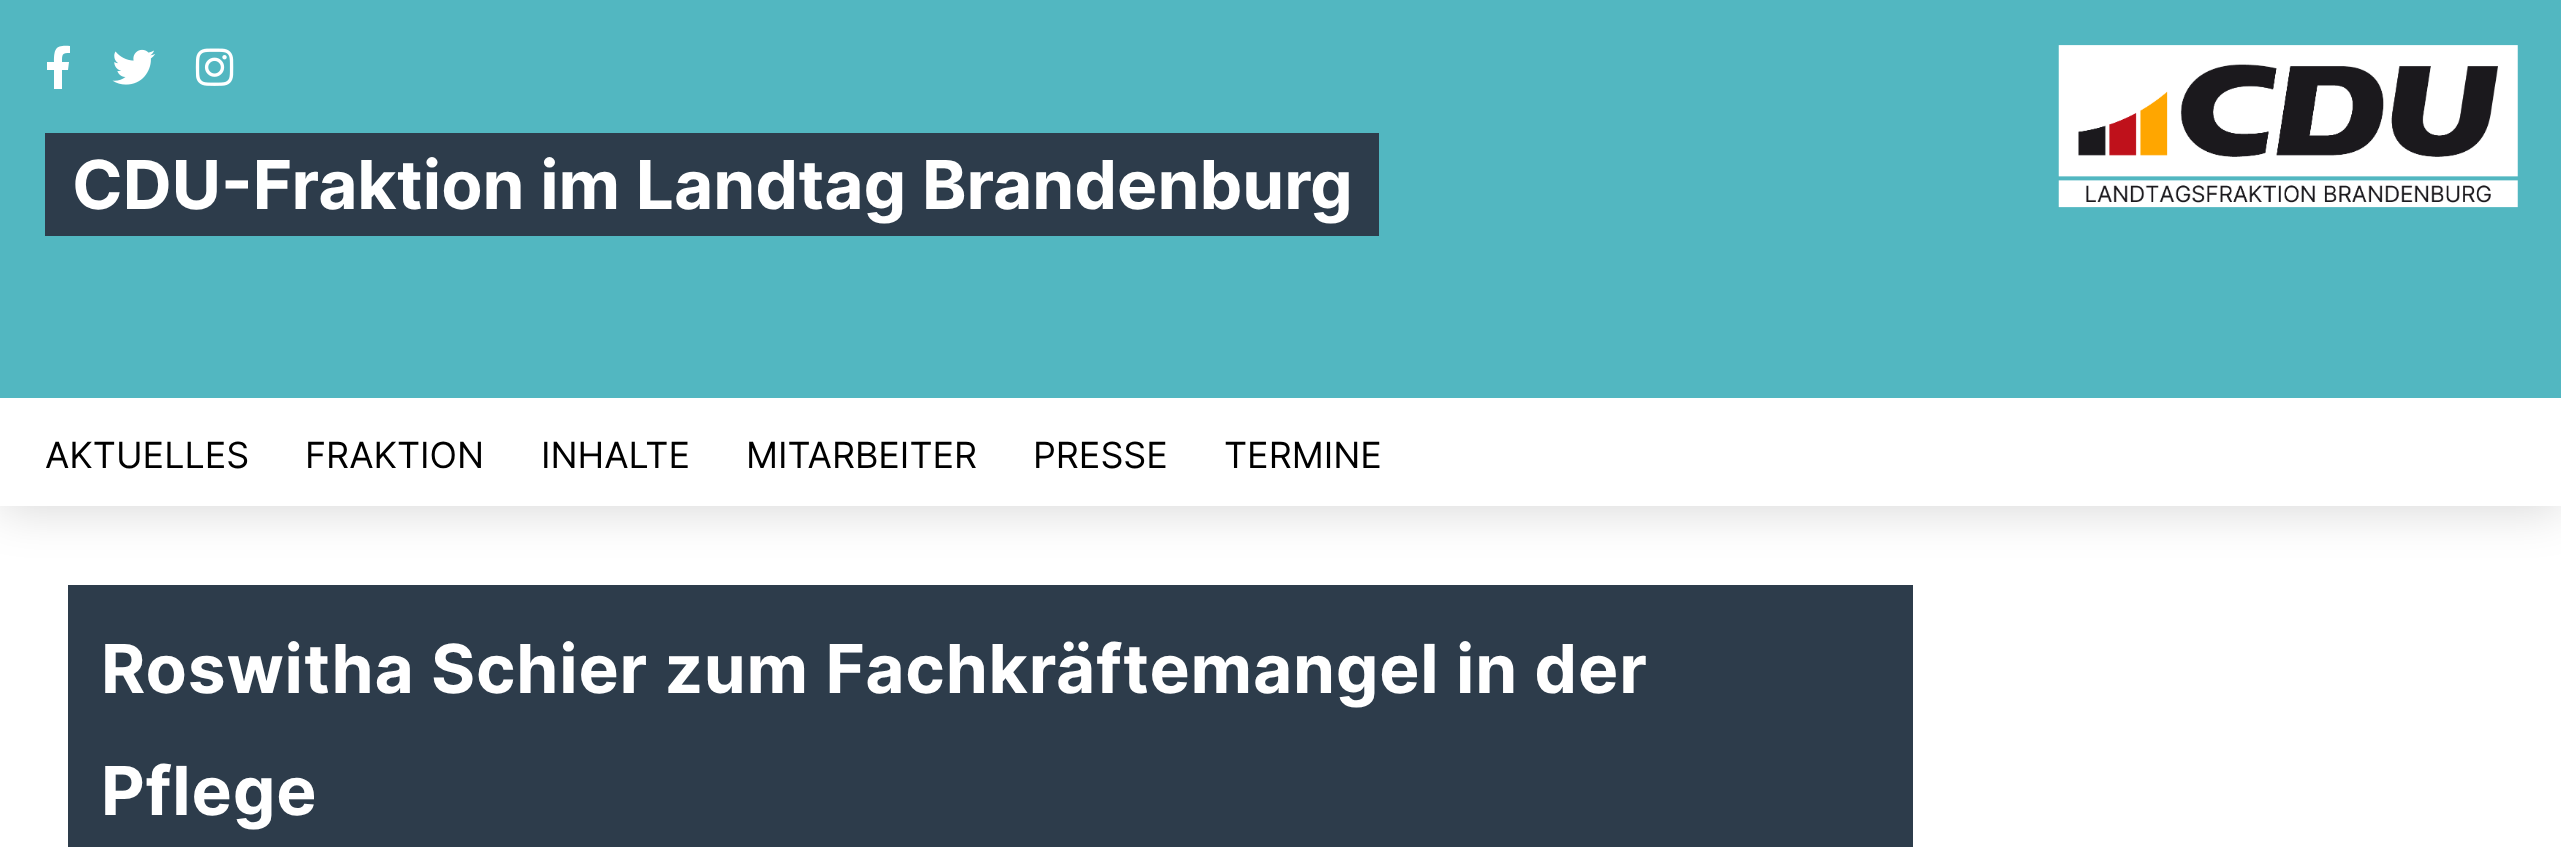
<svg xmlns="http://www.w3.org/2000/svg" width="2561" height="847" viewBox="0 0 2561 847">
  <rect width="100%" height="100%" fill="rgb(255,255,255)"/>
  <rect x="0" y="5" width="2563" height="506" fill="rgba(0,0,0,0.15)" filter="blur(23.5px)"/>
  <rect x="0" y="0" width="2561" height="398" fill="rgb(82,183,193)"/>
  <path d="M68 70H62V89H54V70H47V62H54C54 48 56 45 70 46V53C62 53 62 54 62 62H69Z" fill="rgb(255,255,255)"/>
  <image x="112" y="49" width="44" height="36" href="pic1.png"/>
  <image x="195" y="48" width="39" height="38" href="pic2.png"/>
  <rect x="45" y="133" width="1334" height="103" fill="rgb(45,60,75)"/>
  <text x="72" y="209" font-family="Inter" font-size="67.5" font-weight="bold" fill="rgb(255,255,255)">CDU-Fraktion im Landtag Brandenburg</text>
  <image x="2058" y="45" width="460" height="163" href="pic3.png"/>
  <rect x="0" y="398" width="2561" height="108" fill="rgb(255,255,255)"/>
  <g font-family="Inter" font-size="36" fill="rgb(0,0,0)">
    <text x="45" y="468">AKTUELLES</text>
    <text x="305" y="468">FRAKTION</text>
    <text x="541" y="468">INHALTE</text>
    <text x="746" y="468">MITARBEITER</text>
    <text x="1033" y="468">PRESSE</text>
    <text x="1224" y="468">TERMINE</text>
  </g>
  <rect x="68" y="585" width="1845" height="262" fill="rgb(45,60,75)"/>
  <g font-family="Inter" font-size="67.5" font-weight="bold" letter-spacing="0.8" fill="rgb(255,255,255)">
    <text>
      <tspan x="101" y="693">Roswitha Schier zum Fachkräftemangel in der</tspan>
      <tspan x="101" y="815">Pflege</tspan>
    </text>
  </g>
</svg>
